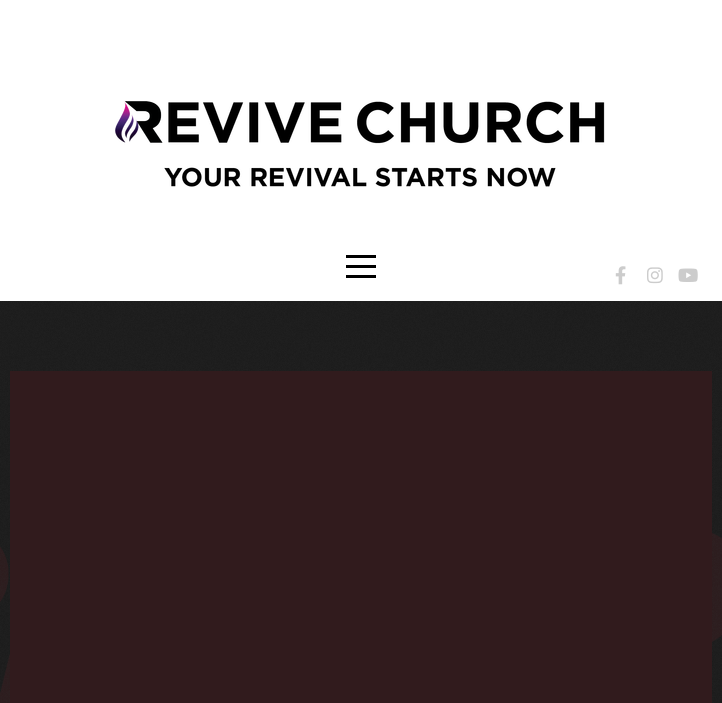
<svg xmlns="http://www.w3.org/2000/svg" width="722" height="703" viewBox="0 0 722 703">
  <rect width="100%" height="100%" fill="rgb(255,255,255)"/>
  <image x="115" y="100" width="490" height="87" href="pic1.png"/>
  <rect x="346" y="255" width="30" height="3" fill="rgb(0,0,0)"/>
  <rect x="346" y="265" width="30" height="3" fill="rgb(0,0,0)"/>
  <rect x="346" y="275" width="30" height="3" fill="rgb(0,0,0)"/>
  <image x="615" y="266" width="11" height="19" href="pic2.png"/>
  <image x="647" y="267" width="16" height="17" href="pic3.png"/>
  <image x="678" y="268" width="20" height="14" href="pic4.png"/>
  <image x="0" y="301" width="722" height="402" href="pic5.png"/>
  <rect x="10" y="371" width="702" height="332" fill="rgb(49,27,29)"/>
</svg>
